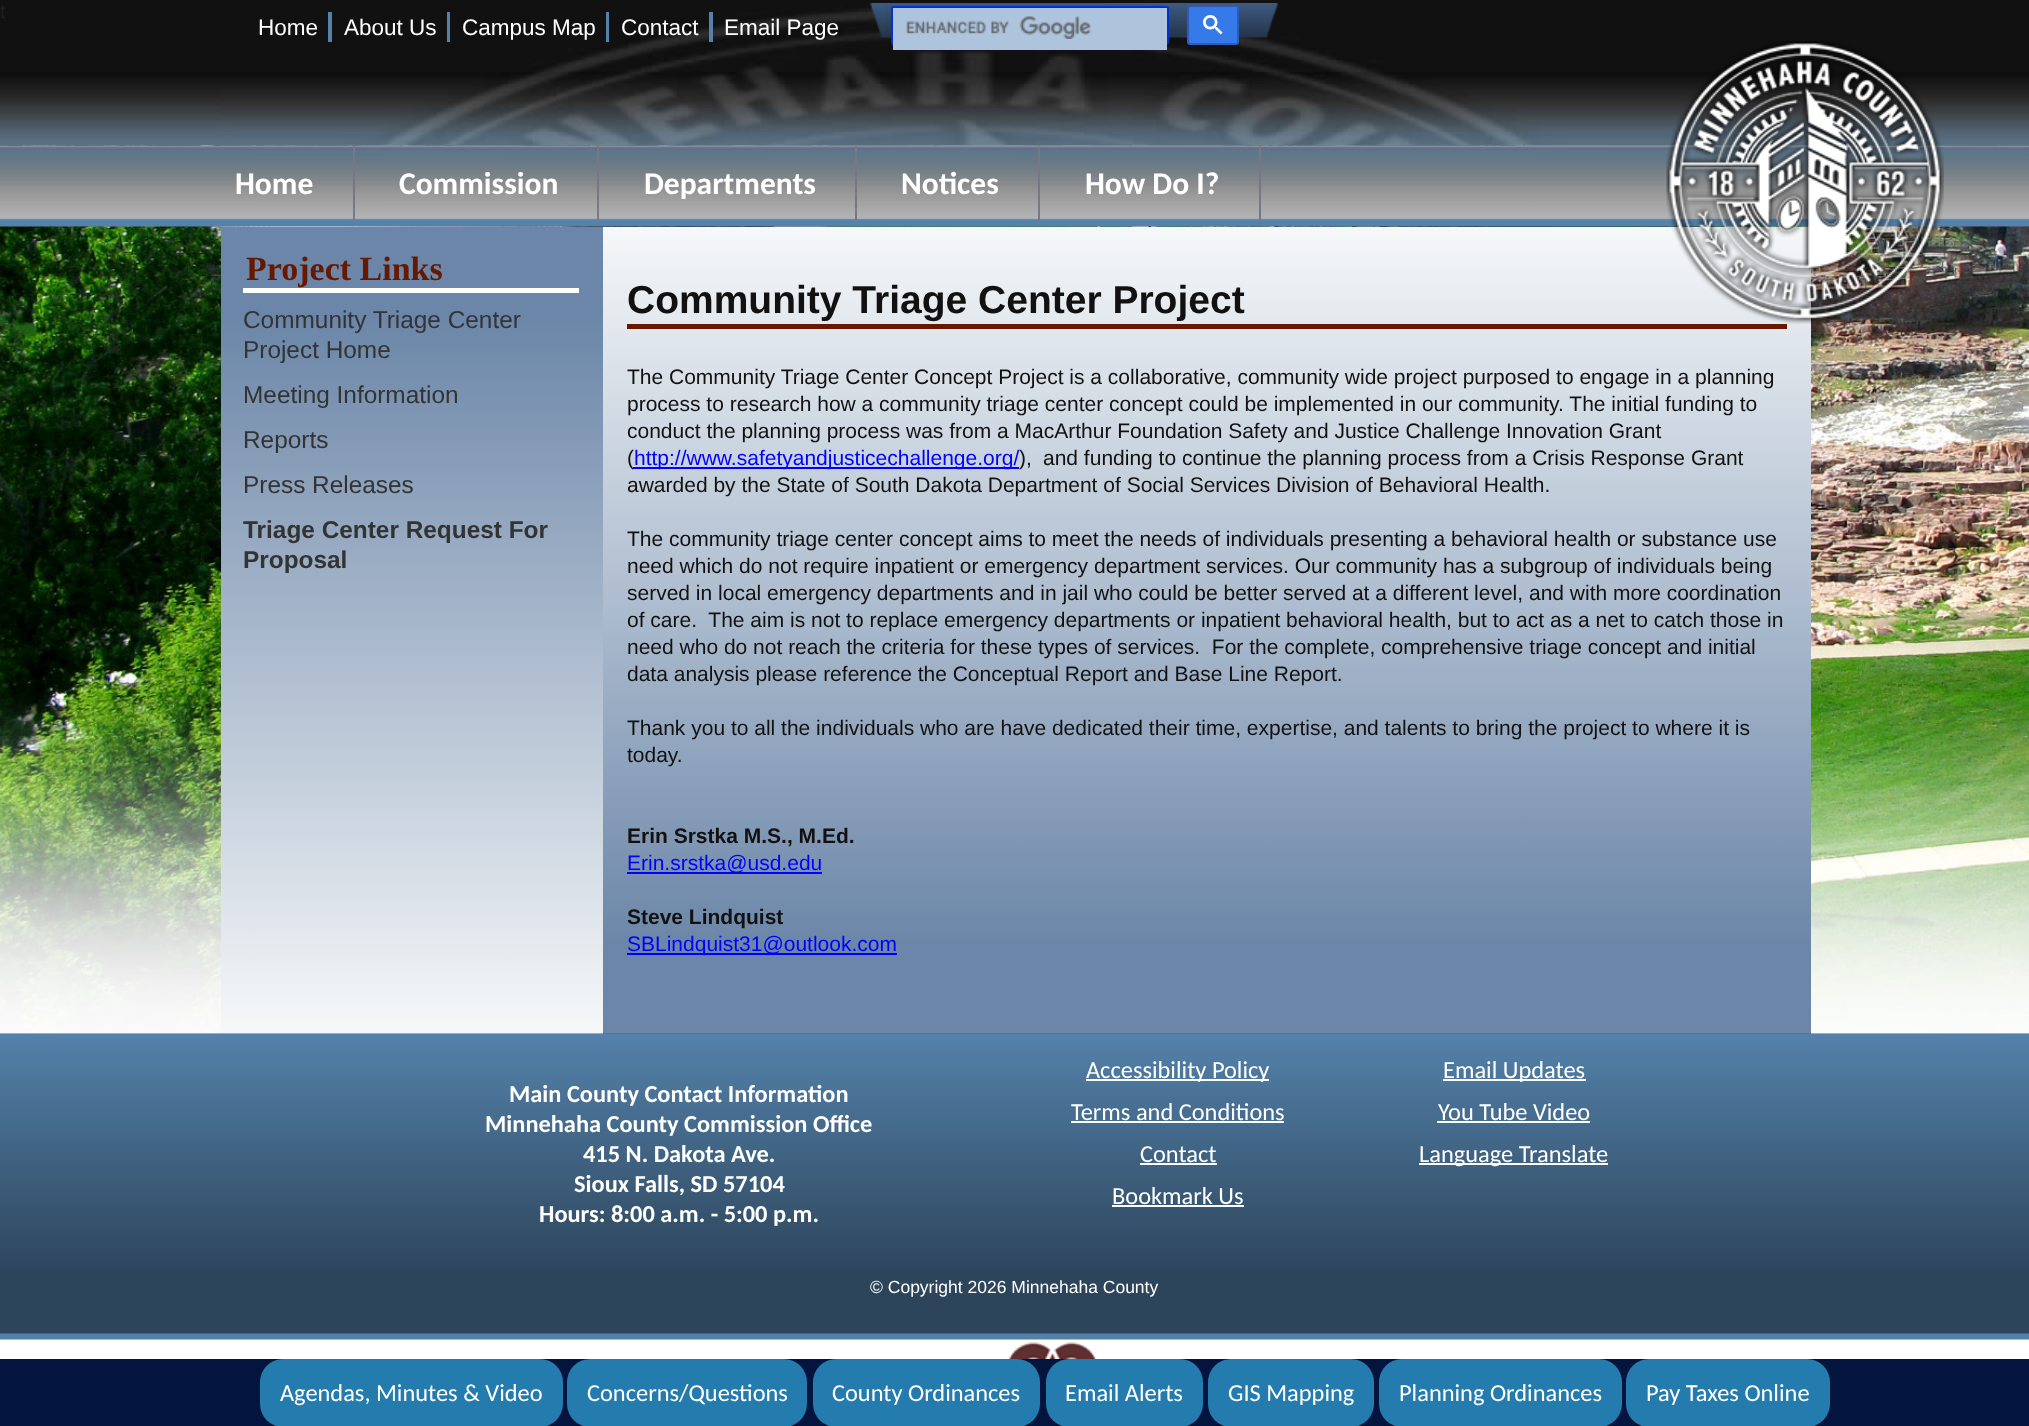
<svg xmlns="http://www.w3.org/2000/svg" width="2029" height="1426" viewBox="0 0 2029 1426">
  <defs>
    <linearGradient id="g1" gradientUnits="userSpaceOnUse" x1="1207" y1="226" x2="1207" y2="1034"><stop offset="0" stop-color="rgb(246,248,249)"/><stop offset="0.89" stop-color="rgb(107,134,168)"/></linearGradient>
    <linearGradient id="g2" gradientUnits="userSpaceOnUse" x1="412" y1="227" x2="412" y2="1034"><stop offset="0.11" stop-color="rgb(107,134,168)"/><stop offset="1" stop-color="rgb(246,248,249)"/></linearGradient>
  </defs>
  <rect width="100%" height="100%" fill="rgb(255,255,255)"/>
  <image x="0" y="145" width="2029" height="889" href="pic1.png"/>
  <image x="0" y="0" width="2029" height="146" href="pic2.png"/>
  <text x="0" y="18" font-family="Liberation Sans" font-size="20" fill="rgb(34,34,34)">t</text>
  <image x="220" y="5" width="1591" height="141" href="pic3.png"/>
  <text x="258" y="35" font-family="Liberation Sans" font-size="22.5" fill="rgb(255,255,255)">Home</text>
  <rect x="328" y="12" width="4" height="30" fill="rgb(86,129,171)"/>
  <text x="344" y="35" font-family="Liberation Sans" font-size="22.5" fill="rgb(255,255,255)">About Us</text>
  <rect x="447" y="12" width="3" height="30" fill="rgb(86,129,171)"/>
  <text x="462" y="35" font-family="Liberation Sans" font-size="22.5" fill="rgb(255,255,255)">Campus Map</text>
  <rect x="606" y="12" width="3" height="30" fill="rgb(86,129,171)"/>
  <text x="621" y="35" font-family="Liberation Sans" font-size="22.5" fill="rgb(255,255,255)">Contact</text>
  <rect x="709" y="12" width="4" height="30" fill="rgb(86,129,171)"/>
  <text x="724" y="35" font-family="Liberation Sans" font-size="22.5" fill="rgb(255,255,255)">Email Page</text>
  <image x="869" y="3" width="410" height="35" href="pic4.png"/>
  <rect x="892" y="7" width="276" height="37" rx="2" fill="none" stroke="rgb(0,51,204)" stroke-width="2"/>
  <rect x="893" y="8" width="274" height="42" fill="rgb(173,196,220)"/>
  <image x="906" y="16" width="185" height="23" href="pic5.png"/>
  <rect x="1188" y="6" width="50" height="38" rx="2" fill="rgb(53,122,232)" stroke="rgb(47,91,183)" stroke-width="2"/>
  <image x="1203" y="15" width="20" height="20" href="pic6.png"/>
  <image x="0" y="145" width="2029" height="82" href="pic8.png"/>
  <rect x="603" y="227" width="1208" height="807" fill="url(#g1)"/>
  <image x="1666" y="41" width="278" height="283" href="pic7.png"/>
  <rect x="353" y="146" width="2" height="76" fill="rgb(119,119,136)"/>
  <text x="235" y="194" font-family="Carlito" font-size="31.5" font-weight="bold" fill="rgb(255,255,255)">Home</text>
  <rect x="597" y="146" width="2" height="76" fill="rgb(119,119,136)"/>
  <text x="399" y="194" font-family="Carlito" font-size="31.5" font-weight="bold" fill="rgb(255,255,255)">Commission</text>
  <rect x="855" y="146" width="2" height="76" fill="rgb(119,119,136)"/>
  <text x="644" y="194" font-family="Carlito" font-size="31.5" font-weight="bold" fill="rgb(255,255,255)">Departments</text>
  <rect x="1038" y="146" width="2" height="76" fill="rgb(119,119,136)"/>
  <text x="901" y="194" font-family="Carlito" font-size="31.5" font-weight="bold" fill="rgb(255,255,255)">Notices</text>
  <rect x="1259" y="146" width="2" height="76" fill="rgb(119,119,136)"/>
  <text x="1085" y="194" font-family="Carlito" font-size="31.5" font-weight="bold" fill="rgb(255,255,255)">How Do I?</text>
  <rect x="221" y="227" width="382" height="807" fill="url(#g2)"/>
  <rect x="243" y="288" width="336" height="5" fill="rgb(255,255,255)"/>
  <text x="246" y="280" font-family="Liberation Serif" font-size="34" font-weight="bold" fill="rgb(102,25,0)">Project Links</text>
  <g font-family="Liberation Sans" font-size="24.4" fill="rgb(51,51,51)">
    <text>
      <tspan x="243" y="328">Community Triage Center</tspan>
      <tspan x="243" y="358">Project Home</tspan>
      <tspan x="243" y="403">Meeting Information</tspan>
      <tspan x="243" y="448">Reports</tspan>
      <tspan x="243" y="493">Press Releases</tspan>
    </text>
  </g>
  <g font-family="Liberation Sans" font-size="24.4" font-weight="bold" fill="rgb(51,51,51)">
    <text>
      <tspan x="243" y="538">Triage Center Request For</tspan>
      <tspan x="243" y="568">Proposal</tspan>
    </text>
  </g>
  <rect x="627" y="324" width="1160" height="5" fill="rgb(102,25,0)"/>
  <text x="627" y="313" font-family="Liberation Sans" font-size="39" font-weight="bold" fill="rgb(17,17,17)">Community Triage Center Project</text>
  <g font-family="Liberation Sans" font-size="21" fill="rgb(17,17,17)">
    <text>
      <tspan x="627" y="384">The Community Triage Center Concept Project is a collaborative, community wide project purposed to engage in a planning</tspan>
      <tspan x="627" y="411">process to research how a community triage center concept could be implemented in our community. The initial funding to</tspan>
      <tspan x="627" y="438">conduct the planning process was from a MacArthur Foundation Safety and Justice Challenge Innovation Grant</tspan>
      <tspan x="627" y="465">(</tspan>
    </text>
  </g>
  <rect x="633" y="467" width="386" height="2" fill="rgb(0,0,255)"/>
  <text x="634" y="465" font-family="Liberation Sans" font-size="21" fill="rgb(0,0,255)">http://www.safetyandjusticechallenge.org/</text>
  <g font-family="Liberation Sans" font-size="21" fill="rgb(17,17,17)">
    <text x="1019" y="465">),</text>
    <text x="1043" y="465">and funding to continue the planning process from a Crisis Response Grant</text>
    <text x="627" y="492">awarded by the State of South Dakota Department of Social Services Division of Behavioral Health.</text>
    <text xml:space="preserve"><tspan x="627" y="546">The community triage center concept aims to meet the needs of individuals presenting a behavioral health or substance use</tspan><tspan x="627" y="573">need which do not require inpatient or emergency department services. Our community has a subgroup of individuals being</tspan><tspan x="627" y="600">served in local emergency departments and in jail who could be better served at a different level, and with more coordination</tspan><tspan x="627" y="627">of care.  The aim is not to replace emergency departments or inpatient behavioral health, but to act as a net to catch those in</tspan><tspan x="627" y="654">need who do not reach the criteria for these types of services.  For the complete, comprehensive triage concept and initial</tspan><tspan x="627" y="681">data analysis please reference the Conceptual Report and Base Line Report.</tspan></text>
    <text>
      <tspan x="627" y="735">Thank you to all the individuals who are have dedicated their time, expertise, and talents to bring the project to where it is</tspan>
      <tspan x="627" y="762">today.</tspan>
    </text>
  </g>
  <text x="627" y="843" font-family="Liberation Sans" font-size="21" font-weight="bold" fill="rgb(17,17,17)">Erin Srstka M.S., M.Ed.</text>
  <rect x="627" y="872" width="195" height="2" fill="rgb(0,0,255)"/>
  <text x="627" y="870" font-family="Liberation Sans" font-size="21" fill="rgb(0,0,255)">Erin.srstka@usd.edu</text>
  <text x="627" y="924" font-family="Liberation Sans" font-size="21" font-weight="bold" fill="rgb(17,17,17)">Steve Lindquist</text>
  <rect x="627" y="953" width="270" height="2" fill="rgb(0,0,255)"/>
  <text x="627" y="951" font-family="Liberation Sans" font-size="21" fill="rgb(0,0,255)">SBLindquist31@outlook.com</text>
  <image x="0" y="1033" width="2029" height="307" href="pic9.png"/>
  <rect x="1086" y="1079" width="183" height="2" fill="rgb(255,255,255)"/>
  <text x="1086" y="1078" font-family="Carlito" font-size="24.4" fill="rgb(255,255,255)">Accessibility Policy</text>
  <rect x="1443" y="1079" width="143" height="2" fill="rgb(255,255,255)"/>
  <text x="1443" y="1078" font-family="Carlito" font-size="24.4" fill="rgb(255,255,255)">Email Updates</text>
  <g font-family="Carlito" font-size="24.4" font-weight="bold" fill="rgb(255,255,255)">
    <text x="509" y="1102">Main County Contact Information</text>
    <text x="485" y="1132">Minnehaha County Commission Office</text>
    <text x="583" y="1162">415 N. Dakota Ave.</text>
    <text x="574" y="1192">Sioux Falls, SD 57104</text>
    <text x="539" y="1222">Hours: 8:00 a.m. - 5:00 p.m.</text>
  </g>
  <text x="1071" y="1120" font-family="Carlito" font-size="24.4" fill="rgb(255,255,255)">Terms and Conditions</text>
  <rect x="1071" y="1121" width="213" height="2" fill="rgb(255,255,255)"/>
  <text x="1438" y="1120" font-family="Carlito" font-size="24.4" fill="rgb(255,255,255)">You Tube Video</text>
  <rect x="1437" y="1121" width="153" height="2" fill="rgb(255,255,255)"/>
  <text x="1140" y="1162" font-family="Carlito" font-size="24.4" fill="rgb(255,255,255)">Contact</text>
  <rect x="1140" y="1163" width="77" height="2" fill="rgb(255,255,255)"/>
  <rect x="1419" y="1163" width="189" height="2" fill="rgb(255,255,255)"/>
  <g font-family="Carlito" font-size="24.4" fill="rgb(255,255,255)">
    <text x="1419" y="1162">Language Translate</text>
    <text x="1112" y="1204">Bookmark Us</text>
  </g>
  <rect x="1112" y="1205" width="132" height="2" fill="rgb(255,255,255)"/>
  <text x="870" y="1293" font-family="Liberation Sans" font-size="17.5" fill="rgb(255,255,255)">© Copyright 2026 Minnehaha County</text>
  <image x="1004" y="1342" width="96" height="17" href="pic10.png"/>
  <rect x="0" y="1359" width="2029" height="67" fill="rgb(3,21,63)"/>
  <rect x="260" y="1359" width="303" height="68" rx="23" fill="rgb(36,123,174)"/>
  <text x="280" y="1401" font-family="Carlito" font-size="24.4" fill="rgb(255,255,255)">Agendas, Minutes &amp; Video</text>
  <rect x="567" y="1359" width="240" height="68" rx="23" fill="rgb(36,123,174)"/>
  <text x="587" y="1401" font-family="Carlito" font-size="24.4" fill="rgb(255,255,255)">Concerns/Questions</text>
  <rect x="813" y="1359" width="227" height="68" rx="23" fill="rgb(36,123,174)"/>
  <text x="832" y="1401" font-family="Carlito" font-size="24.4" fill="rgb(255,255,255)">County Ordinances</text>
  <rect x="1046" y="1359" width="157" height="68" rx="23" fill="rgb(36,123,174)"/>
  <text x="1065" y="1401" font-family="Carlito" font-size="24.4" fill="rgb(255,255,255)">Email Alerts</text>
  <rect x="1208" y="1359" width="166" height="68" rx="23" fill="rgb(36,123,174)"/>
  <text x="1228" y="1401" font-family="Carlito" font-size="24.4" fill="rgb(255,255,255)">GIS Mapping</text>
  <rect x="1379" y="1359" width="243" height="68" rx="23" fill="rgb(36,123,174)"/>
  <text x="1399" y="1401" font-family="Carlito" font-size="24.4" fill="rgb(255,255,255)">Planning Ordinances</text>
  <rect x="1626" y="1359" width="204" height="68" rx="23" fill="rgb(36,123,174)"/>
  <text x="1646" y="1401" font-family="Carlito" font-size="24.4" fill="rgb(255,255,255)">Pay Taxes Online</text>
</svg>
